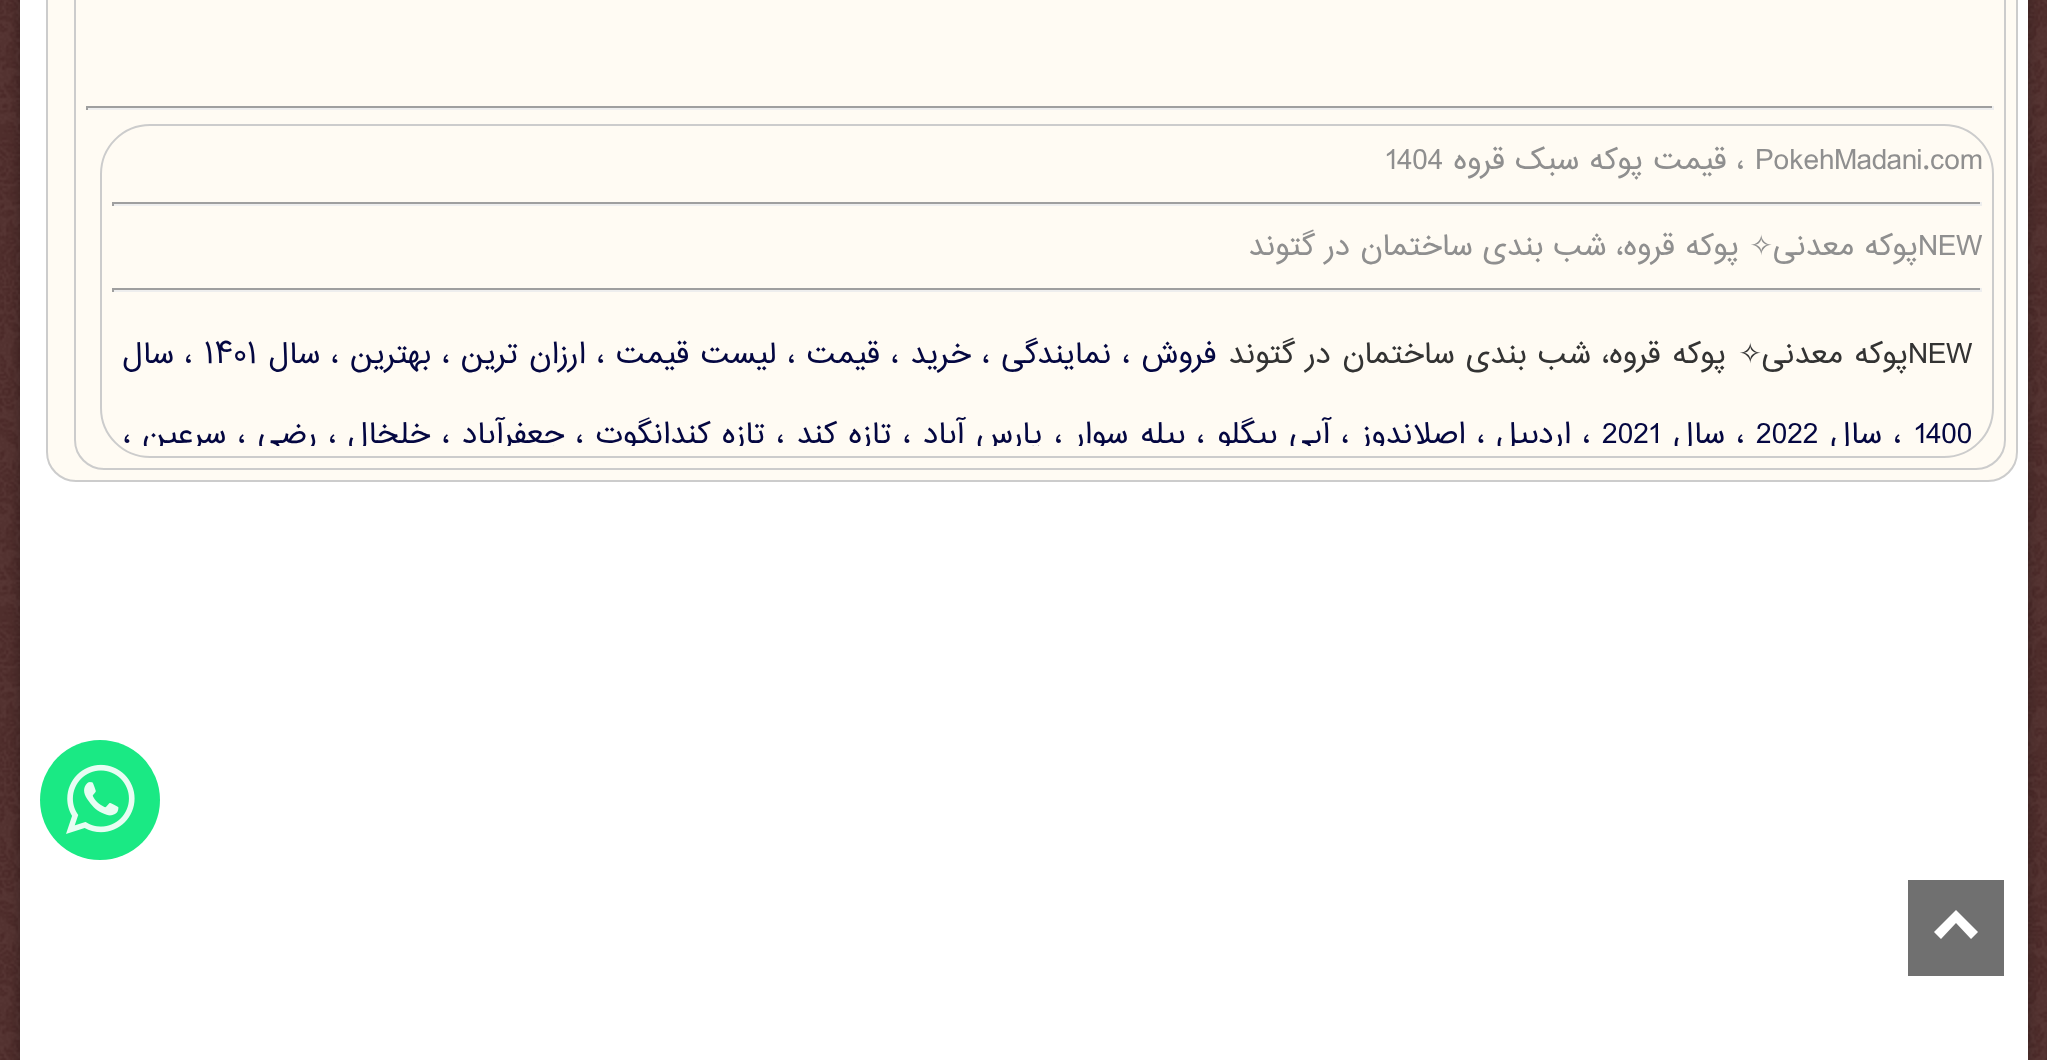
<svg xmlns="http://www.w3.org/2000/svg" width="2047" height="1060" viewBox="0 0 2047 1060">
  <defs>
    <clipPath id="clip1"><rect x="112" y="306" width="1870" height="140"/></clipPath>
  </defs>
  <rect width="100%" height="100%" fill="rgb(65,27,28)"/>
  <image x="0" y="0" width="2047" height="1060" href="pic1.png"/>
  <rect x="30" y="-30" width="1988" height="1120" fill="rgb(0,0,0)" filter="blur(10px)"/>
  <rect x="20" y="0" width="2008" height="1060" fill="rgb(255,255,255)"/>
  <rect x="47" y="-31" width="1970" height="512" rx="29" fill="rgb(255,251,243)" stroke="rgb(204,204,204)" stroke-width="2"/>
  <rect x="75" y="-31" width="1930" height="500" rx="29" fill="none" stroke="rgb(204,204,204)" stroke-width="2"/>
  <rect x="86" y="106" width="1908" height="2" fill="rgb(159,159,159)"/>
  <rect x="1992" y="106" width="2" height="4" fill="rgb(238,238,238)"/>
  <rect x="86" y="108" width="1908" height="2" fill="rgb(238,238,238)"/>
  <rect x="86" y="106" width="2" height="4" fill="rgb(159,159,159)"/>
  <rect x="101" y="125" width="1892" height="332" rx="49" fill="none" stroke="rgb(204,204,204)" stroke-width="2"/>
  <text x="1755" y="169" font-family="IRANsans" font-size="28" fill="rgb(143,143,143)">PokehMadani.com</text>
  <text x="1744" y="169" font-family="IRANsans" font-size="28" direction="rtl" fill="rgb(143,143,143)">، قیمت پوکه سبک قروه</text>
  <text x="1385" y="169" font-family="IRANsans" font-size="28" fill="rgb(143,143,143)">1404</text>
  <rect x="112" y="202" width="1870" height="2" fill="rgb(159,159,159)"/>
  <rect x="1980" y="202" width="2" height="4" fill="rgb(238,238,238)"/>
  <rect x="112" y="204" width="1870" height="2" fill="rgb(238,238,238)"/>
  <rect x="112" y="202" width="2" height="4" fill="rgb(159,159,159)"/>
  <text x="1918" y="255" font-family="IRANsans" font-size="28" fill="rgb(143,143,143)">NEW</text>
  <text x="1918" y="255" font-family="IRANsans" font-size="28" direction="rtl" fill="rgb(143,143,143)">پوکه معدنی</text>
  <text x="1773" y="255" font-family="DejaVu Sans" font-size="28" direction="rtl" fill="rgb(143,143,143)">✧</text>
  <g font-family="IRANsans" font-size="28" direction="rtl" fill="rgb(143,143,143)">
    <text x="1739" y="255">پوکه قروه، شب بندی ساختمان در</text>
    <text x="1314" y="255">گتوند</text>
  </g>
  <rect x="112" y="288" width="1870" height="2" fill="rgb(159,159,159)"/>
  <rect x="1980" y="288" width="2" height="4" fill="rgb(238,238,238)"/>
  <rect x="112" y="290" width="1870" height="2" fill="rgb(238,238,238)"/>
  <rect x="112" y="288" width="2" height="4" fill="rgb(159,159,159)"/>
  <text x="1908" y="363" font-family="IRANsans" font-size="28" fill="rgb(51,51,51)">NEW</text>
  <text x="1908" y="363" word-spacing="1.25" font-family="IRANsans" font-size="28" direction="rtl" fill="rgb(51,51,51)">پوکه معدنی</text>
  <text x="1762" y="363" font-family="DejaVu Sans" font-size="28" direction="rtl" fill="rgb(51,51,51)">✧</text>
  <g font-family="IRANsans" font-size="28" direction="rtl" fill="rgb(51,51,51)">
    <text x="1726" y="363" word-spacing="1.25">پوکه قروه، شب بندی ساختمان در</text>
    <text x="1294" y="363">گتوند</text>
  </g>
  <text x="1216" y="363" word-spacing="1.25" font-family="IRANsans" font-size="28" direction="rtl" fill="rgb(4,7,65)">فروش ، نمایندگی ، خرید ، قیمت ، لیست قیمت ، ارزان ترین ، بهترین ، سال</text>
  <text x="204" y="363" font-family="IRANsans" font-size="28" fill="rgb(4,7,65)">۱۴۰۱</text>
  <text x="192" y="363" word-spacing="1" font-family="IRANsans" font-size="28" direction="rtl" fill="rgb(4,7,65)">، سال</text>
  <text x="1914" y="443" font-family="IRANsans" font-size="28" fill="rgb(4,7,65)">1400</text>
  <g clip-path="url(#clip1)">
    <text x="1901" y="443" word-spacing="2" font-family="IRANsans" font-size="28" direction="rtl" fill="rgb(4,7,65)">، سال</text>
  </g>
  <text x="1756" y="443" font-family="IRANsans" font-size="28" fill="rgb(4,7,65)">2022</text>
  <g clip-path="url(#clip1)">
    <text x="1744" y="443" word-spacing="2" font-family="IRANsans" font-size="28" direction="rtl" fill="rgb(4,7,65)">، سال</text>
  </g>
  <text x="1602" y="443" font-family="IRANsans" font-size="28" fill="rgb(4,7,65)">2021</text>
  <g clip-path="url(#clip1)">
    <text x="1590" y="443" word-spacing="1.9" font-family="IRANsans" font-size="28" direction="rtl" fill="rgb(4,7,65)">، اردبيل ، اصلاندوز ، آبي بيگلو ، بيله سوار ، پارس آباد ، تازه كند ، تازه كندانگوت ، جعفرآباد ، خلخال ، رضي ، سرعين ،</text>
  </g>
  <circle cx="100" cy="800" r="60" fill="rgb(26,233,132)"/>
  <image x="66" y="764" width="69" height="70" href="pic2.png"/>
  <rect x="1908" y="880" width="96" height="96" fill="rgb(112,112,112)"/>
  <path d="M1934 932L1956 910L1978 932L1971 939L1956 923L1941 939Z" fill="rgb(255,255,255)"/>
</svg>
